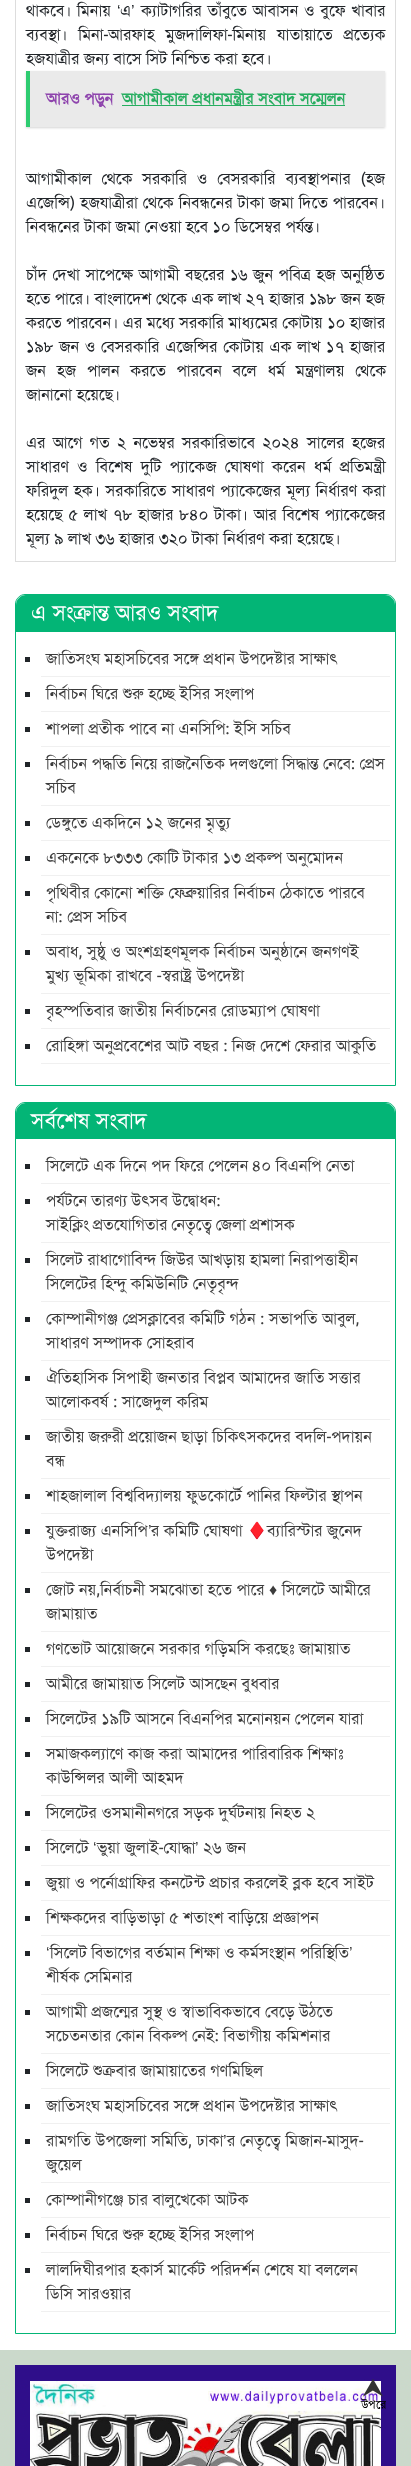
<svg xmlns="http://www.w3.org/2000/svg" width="411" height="2466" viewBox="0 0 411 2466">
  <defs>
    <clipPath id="clip1"><rect x="26" y="263" width="359" height="144"/></clipPath>
    <clipPath id="clip2"><rect x="26" y="431" width="359" height="120"/></clipPath>
  </defs>
  <rect width="100%" height="100%" fill="rgb(255,255,255)"/>
  <rect x="15.5" y="-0.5" width="380" height="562" fill="none" stroke="rgb(221,221,221)"/>
  <text x="26" y="16" word-spacing="2" font-family="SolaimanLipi" font-size="16" fill="rgb(33,37,41)">থাকবে। মিনায়</text>
  <text x="117" y="16" font-family="Liberation Sans" font-size="16" fill="rgb(33,37,41)">‘</text>
  <text x="120" y="16" font-family="SolaimanLipi" font-size="16" fill="rgb(33,37,41)">এ</text>
  <text x="131" y="16" font-family="Liberation Sans" font-size="16" fill="rgb(33,37,41)">’</text>
  <g font-family="SolaimanLipi" font-size="16" fill="rgb(33,37,41)">
    <text x="141" y="16" word-spacing="2">ক্যাটাগরির তাঁবুতে আবাসন ও বুফে খাবার</text>
    <text>
      <tspan x="26" y="40" word-spacing="7">ব্যবস্থা। মিনা-আরফাহ মুজদালিফা-মিনায় যাতায়াতে প্রত্যেক</tspan>
      <tspan x="26" y="64" word-spacing="0.75">হজযাত্রীর জন্য বাসে সিট নিশ্চিত করা হবে।</tspan>
    </text>
  </g>
  <rect x="26" y="72" width="359" height="56" fill="rgba(0,0,0,0.17)" filter="blur(1px)"/>
  <rect x="30" y="71" width="355" height="56" fill="rgb(234,234,234)"/>
  <rect x="26" y="71" width="4" height="56" fill="rgb(46,204,113)"/>
  <text x="46" y="104" word-spacing="0.75" font-family="SolaimanLipi" font-size="16" font-weight="bold" fill="rgb(142,68,173)">আরও পড়ুন</text>
  <rect x="122" y="105" width="223" height="1" fill="rgb(39,174,96)"/>
  <text x="122" y="104" word-spacing="0.75" font-family="SolaimanLipi" font-size="16" font-weight="bold" fill="rgb(39,174,96)">আগামীকাল প্রধানমন্ত্রীর সংবাদ সম্মেলন</text>
  <g font-family="SolaimanLipi" font-size="16" fill="rgb(33,37,41)">
    <text>
      <tspan x="26" y="184" word-spacing="6">আগামীকাল থেকে সরকারি ও বেসরকারি ব্যবস্থাপনার (হজ</tspan>
      <tspan x="26" y="208" word-spacing="1.25">এজেন্সি) হজযাত্রীরা থেকে নিবন্ধনের টাকা জমা দিতে পারবেন।</tspan>
      <tspan x="26" y="232" word-spacing="0.75">নিবন্ধনের টাকা জমা নেওয়া হবে ১০ ডিসেম্বর পর্যন্ত।</tspan>
    </text>
  </g>
  <g clip-path="url(#clip1)">
    <text x="26" y="280" word-spacing="1.75" font-family="SolaimanLipi" font-size="16" fill="rgb(33,37,41)">চাঁদ দেখা সাপেক্ষে আগামী বছরের ১৬ জুন পবিত্র হজ অনুষ্ঠিত</text>
  </g>
  <g font-family="SolaimanLipi" font-size="16" fill="rgb(33,37,41)">
    <text>
      <tspan x="26" y="304" word-spacing="0.75">হতে পারে। বাংলাদেশ থেকে এক লাখ ২৭ হাজার ১৯৮ জন হজ</tspan>
      <tspan x="26" y="328" word-spacing="0.75">করতে পারবেন। এর মধ্যে সরকারি মাধ্যমের কোটায় ১০ হাজার</tspan>
      <tspan x="26" y="352" word-spacing="1.9">১৯৮ জন ও বেসরকারি এজেন্সির কোটায় এক লাখ ১৭ হাজার</tspan>
      <tspan x="26" y="376" word-spacing="7">জন হজ পালন করতে পারবেন বলে ধর্ম মন্ত্রণালয় থেকে</tspan>
      <tspan x="26" y="400" word-spacing="0.75">জানানো হয়েছে।</tspan>
    </text>
    <text>
      <tspan x="26" y="448" word-spacing="3.5">এর আগে গত ২ নভেম্বর সরকারিভাবে ২০২৪ সালের হজের</tspan>
      <tspan x="26" y="472" word-spacing="4.5">সাধারণ ও বিশেষ দুটি প্যাকেজ ঘোষণা করেন ধর্ম প্রতিমন্ত্রী</tspan>
      <tspan x="26" y="496" word-spacing="1.75">ফরিদুল হক। সরকারিতে সাধারণ প্যাকেজের মূল্য নির্ধারণ করা</tspan>
      <tspan x="26" y="520" word-spacing="2">হয়েছে ৫ লাখ ৭৮ হাজার ৮৪০ টাকা। আর বিশেষ প্যাকেজের</tspan>
    </text>
  </g>
  <g clip-path="url(#clip2)">
    <text x="26" y="544" word-spacing="0.75" font-family="SolaimanLipi" font-size="16" fill="rgb(33,37,41)">মূল্য ৯ লাখ ৩৬ হাজার ৩২০ টাকা নির্ধারণ করা হয়েছে।</text>
  </g>
  <path d="M25 594.5H386C391 594.5 395.5 599 395.5 604V1085.5H15.5V604C15.5 599 20 594.5 25 594.5Z" fill="none" stroke="rgb(3,181,118)"/>
  <path d="M26 595H385C390.5 595 395 599.5 395 605V632H16V605C16 599.5 20.5 595 26 595Z" fill="rgb(3,181,118)"/>
  <text x="31" y="620" word-spacing="1" font-family="SolaimanLipi" font-size="22" fill="rgb(255,255,255)">এ সংক্রান্ত আরও সংবাদ</text>
  <rect x="41" y="676" width="349" height="1" fill="rgb(240,240,240)"/>
  <rect x="25" y="657" width="5" height="5" fill="rgb(33,37,41)"/>
  <text x="46" y="664" word-spacing="0.75" font-family="SolaimanLipi" font-size="16" fill="rgb(60,60,60)">জাতিসংঘ মহাসচিবের সঙ্গে প্রধান উপদেষ্টার সাক্ষাৎ</text>
  <rect x="41" y="711" width="349" height="1" fill="rgb(240,240,240)"/>
  <rect x="25" y="692" width="5" height="5" fill="rgb(33,37,41)"/>
  <text x="46" y="699" word-spacing="0.75" font-family="SolaimanLipi" font-size="16" fill="rgb(60,60,60)">নির্বাচন ঘিরে শুরু হচ্ছে ইসির সংলাপ</text>
  <rect x="41" y="746" width="349" height="1" fill="rgb(240,240,240)"/>
  <rect x="25" y="727" width="5" height="5" fill="rgb(33,37,41)"/>
  <text x="46" y="734" word-spacing="0.75" font-family="SolaimanLipi" font-size="16" fill="rgb(60,60,60)">শাপলা প্রতীক পাবে না এনসিপি: ইসি সচিব</text>
  <rect x="41" y="805" width="349" height="1" fill="rgb(240,240,240)"/>
  <rect x="25" y="762" width="5" height="5" fill="rgb(33,37,41)"/>
  <g font-family="SolaimanLipi" font-size="16" fill="rgb(60,60,60)">
    <text>
      <tspan x="46" y="769" word-spacing="0.75">নির্বাচন পদ্ধতি নিয়ে রাজনৈতিক দলগুলো সিদ্ধান্ত নেবে: প্রেস</tspan>
      <tspan x="46" y="793">সচিব</tspan>
    </text>
  </g>
  <rect x="41" y="840" width="349" height="1" fill="rgb(240,240,240)"/>
  <rect x="25" y="821" width="5" height="5" fill="rgb(33,37,41)"/>
  <text x="46" y="828" word-spacing="0.75" font-family="SolaimanLipi" font-size="16" fill="rgb(60,60,60)">ডেঙ্গুতে একদিনে ১২ জনের মৃত্যু</text>
  <rect x="41" y="875" width="349" height="1" fill="rgb(240,240,240)"/>
  <rect x="25" y="856" width="5" height="5" fill="rgb(33,37,41)"/>
  <text x="46" y="863" word-spacing="0.75" font-family="SolaimanLipi" font-size="16" fill="rgb(60,60,60)">একনেকে ৮৩৩৩ কোটি টাকার ১৩ প্রকল্প অনুমোদন</text>
  <rect x="41" y="934" width="349" height="1" fill="rgb(240,240,240)"/>
  <rect x="25" y="891" width="5" height="5" fill="rgb(33,37,41)"/>
  <g font-family="SolaimanLipi" font-size="16" fill="rgb(60,60,60)">
    <text>
      <tspan x="46" y="898" word-spacing="0.75">পৃথিবীর কোনো শক্তি ফেব্রুয়ারির নির্বাচন ঠেকাতে পারবে</tspan>
      <tspan x="46" y="922" word-spacing="1">না: প্রেস সচিব</tspan>
    </text>
  </g>
  <rect x="41" y="993" width="349" height="1" fill="rgb(240,240,240)"/>
  <rect x="25" y="950" width="5" height="5" fill="rgb(33,37,41)"/>
  <g font-family="SolaimanLipi" font-size="16" fill="rgb(60,60,60)">
    <text>
      <tspan x="46" y="957" word-spacing="0.75">অবাধ, সুষ্ঠু ও অংশগ্রহণমূলক নির্বাচন অনুষ্ঠানে জনগণই</tspan>
      <tspan x="46" y="981" word-spacing="1">মুখ্য ভূমিকা রাখবে -স্বরাষ্ট্র উপদেষ্টা</tspan>
    </text>
  </g>
  <rect x="41" y="1028" width="349" height="1" fill="rgb(240,240,240)"/>
  <rect x="25" y="1009" width="5" height="5" fill="rgb(33,37,41)"/>
  <text x="46" y="1016" word-spacing="0.75" font-family="SolaimanLipi" font-size="16" fill="rgb(60,60,60)">বৃহস্পতিবার জাতীয় নির্বাচনের রোডম্যাপ ঘোষণা</text>
  <rect x="41" y="1063" width="349" height="1" fill="rgb(240,240,240)"/>
  <rect x="25" y="1044" width="5" height="5" fill="rgb(33,37,41)"/>
  <text x="46" y="1051" word-spacing="0.75" font-family="SolaimanLipi" font-size="16" fill="rgb(60,60,60)">রোহিঙ্গা অনুপ্রবেশের আট বছর : নিজ দেশে ফেরার আকুতি</text>
  <path d="M25 1102.5H386C391 1102.5 395.5 1107 395.5 1112V2333.5H15.5V1112C15.5 1107 20 1102.5 25 1102.5Z" fill="none" stroke="rgb(3,181,118)"/>
  <path d="M26 1103H385C390.5 1103 395 1107.5 395 1113V1139H16V1113C16 1107.5 20.5 1103 26 1103Z" fill="rgb(3,181,118)"/>
  <text x="31" y="1128" word-spacing="1" font-family="SolaimanLipi" font-size="22" fill="rgb(255,255,255)">সর্বশেষ সংবাদ</text>
  <rect x="41" y="1183" width="349" height="1" fill="rgb(240,240,240)"/>
  <rect x="25" y="1164" width="5" height="5" fill="rgb(33,37,41)"/>
  <g font-family="SolaimanLipi" font-size="16" fill="rgb(60,60,60)">
    <text x="46" y="1171" word-spacing="0.75">সিলেটে এক দিনে পদ ফিরে পেলেন</text>
    <text x="252" y="1171" word-spacing="0.75">৪০ বিএনপি নেতা</text>
  </g>
  <rect x="41" y="1242" width="349" height="1" fill="rgb(240,240,240)"/>
  <rect x="25" y="1199" width="5" height="5" fill="rgb(33,37,41)"/>
  <g font-family="SolaimanLipi" font-size="16" fill="rgb(60,60,60)">
    <text>
      <tspan x="46" y="1206" word-spacing="0.5">পর্যটনে তারণ্য উৎসব উদ্বোধন:</tspan>
      <tspan x="46" y="1230">সাইক্লিং প্রতযোগিতার নেতৃত্বে জেলা প্রশাসক</tspan>
    </text>
  </g>
  <rect x="41" y="1301" width="349" height="1" fill="rgb(240,240,240)"/>
  <rect x="25" y="1258" width="5" height="5" fill="rgb(33,37,41)"/>
  <g font-family="SolaimanLipi" font-size="16" fill="rgb(60,60,60)">
    <text>
      <tspan x="46" y="1265" word-spacing="0.75">সিলেট রাধাগোবিন্দ জিউর আখড়ায় হামলা নিরাপত্তাহীন</tspan>
      <tspan x="46" y="1289" word-spacing="0.75">সিলেটের হিন্দু কমিউনিটি নেতৃবৃন্দ</tspan>
    </text>
  </g>
  <rect x="41" y="1360" width="349" height="1" fill="rgb(240,240,240)"/>
  <rect x="25" y="1317" width="5" height="5" fill="rgb(33,37,41)"/>
  <g font-family="SolaimanLipi" font-size="16" fill="rgb(60,60,60)">
    <text>
      <tspan x="46" y="1324" word-spacing="1">কোম্পানীগঞ্জ প্রেসক্লাবের কমিটি গঠন : সভাপতি আবুল,</tspan>
      <tspan x="46" y="1348" word-spacing="0.75">সাধারণ সম্পাদক সোহরাব</tspan>
    </text>
  </g>
  <rect x="41" y="1419" width="349" height="1" fill="rgb(240,240,240)"/>
  <rect x="25" y="1376" width="5" height="5" fill="rgb(33,37,41)"/>
  <g font-family="SolaimanLipi" font-size="16" fill="rgb(60,60,60)">
    <text>
      <tspan x="46" y="1383" word-spacing="0.75">ঐতিহাসিক সিপাহী জনতার বিপ্লব আমাদের জাতি সত্তার</tspan>
      <tspan x="46" y="1407" word-spacing="1">আলোকবর্ষ : সাজেদুল করিম</tspan>
    </text>
  </g>
  <rect x="41" y="1478" width="349" height="1" fill="rgb(240,240,240)"/>
  <rect x="25" y="1435" width="5" height="5" fill="rgb(33,37,41)"/>
  <g font-family="SolaimanLipi" font-size="16" fill="rgb(60,60,60)">
    <text>
      <tspan x="46" y="1442" word-spacing="0.75">জাতীয় জরুরী প্রয়োজন ছাড়া চিকিৎসকদের বদলি-পদায়ন</tspan>
      <tspan x="46" y="1466">বন্ধ</tspan>
    </text>
  </g>
  <rect x="41" y="1513" width="349" height="1" fill="rgb(240,240,240)"/>
  <rect x="25" y="1494" width="5" height="5" fill="rgb(33,37,41)"/>
  <text x="46" y="1501" word-spacing="0.75" font-family="SolaimanLipi" font-size="16" fill="rgb(60,60,60)">শাহজালাল বিশ্ববিদ্যালয় ফুডকোর্টে পানির ফিল্টার স্থাপন</text>
  <rect x="41" y="1572" width="349" height="1" fill="rgb(240,240,240)"/>
  <rect x="25" y="1529" width="5" height="5" fill="rgb(33,37,41)"/>
  <text x="46" y="1536" word-spacing="0.75" font-family="SolaimanLipi" font-size="16" fill="rgb(60,60,60)">যুক্তরাজ্য এনসিপি</text>
  <text x="148" y="1536" font-family="Liberation Sans" font-size="16" fill="rgb(60,60,60)">’</text>
  <text x="151" y="1536" word-spacing="0.75" font-family="SolaimanLipi" font-size="16" fill="rgb(60,60,60)">র কমিটি ঘোষণা</text>
  <text x="247" y="1536" font-family="Noto Color Emoji" font-size="16" fill="rgb(60,60,60)">♦️</text>
  <g font-family="SolaimanLipi" font-size="16" fill="rgb(60,60,60)">
    <text x="267" y="1536" word-spacing="0.75">ব্যারিস্টার জুনেদ</text>
    <text x="46" y="1560">উপদেষ্টা</text>
  </g>
  <rect x="41" y="1631" width="349" height="1" fill="rgb(240,240,240)"/>
  <rect x="25" y="1588" width="5" height="5" fill="rgb(33,37,41)"/>
  <text x="46" y="1595" word-spacing="0.75" font-family="SolaimanLipi" font-size="16" fill="rgb(60,60,60)">জোট নয়,নির্বাচনী সমঝোতা হতে পারে</text>
  <text x="269" y="1595" font-family="Liberation Sans" font-size="16" fill="rgb(60,60,60)">♦</text>
  <g font-family="SolaimanLipi" font-size="16" fill="rgb(60,60,60)">
    <text x="282" y="1595" word-spacing="0.75">সিলেটে আমীরে</text>
    <text x="46" y="1619">জামায়াত</text>
  </g>
  <rect x="41" y="1666" width="349" height="1" fill="rgb(240,240,240)"/>
  <rect x="25" y="1647" width="5" height="5" fill="rgb(33,37,41)"/>
  <text x="46" y="1654" word-spacing="0.75" font-family="SolaimanLipi" font-size="16" fill="rgb(60,60,60)">গণভোট আয়োজনে সরকার গড়িমসি করছেঃ জামায়াত</text>
  <rect x="41" y="1701" width="349" height="1" fill="rgb(240,240,240)"/>
  <rect x="25" y="1682" width="5" height="5" fill="rgb(33,37,41)"/>
  <text x="46" y="1689" word-spacing="0.75" font-family="SolaimanLipi" font-size="16" fill="rgb(60,60,60)">আমীরে জামায়াত সিলেট আসছেন বুধবার</text>
  <rect x="41" y="1736" width="349" height="1" fill="rgb(240,240,240)"/>
  <rect x="25" y="1717" width="5" height="5" fill="rgb(33,37,41)"/>
  <text x="46" y="1724" word-spacing="0.75" font-family="SolaimanLipi" font-size="16" fill="rgb(60,60,60)">সিলেটের ১৯টি আসনে বিএনপির মনোনয়ন পেলেন যারা</text>
  <rect x="41" y="1795" width="349" height="1" fill="rgb(240,240,240)"/>
  <rect x="25" y="1752" width="5" height="5" fill="rgb(33,37,41)"/>
  <g font-family="SolaimanLipi" font-size="16" fill="rgb(60,60,60)">
    <text>
      <tspan x="46" y="1759" word-spacing="0.75">সমাজকল্যাণে কাজ করা আমাদের পারিবারিক শিক্ষাঃ</tspan>
      <tspan x="46" y="1783" word-spacing="0.75">কাউন্সিলর আলী আহমদ</tspan>
    </text>
  </g>
  <rect x="41" y="1830" width="349" height="1" fill="rgb(240,240,240)"/>
  <rect x="25" y="1811" width="5" height="5" fill="rgb(33,37,41)"/>
  <text x="46" y="1818" word-spacing="0.75" font-family="SolaimanLipi" font-size="16" fill="rgb(60,60,60)">সিলেটের ওসমানীনগরে সড়ক দুর্ঘটনায় নিহত ২</text>
  <rect x="41" y="1865" width="349" height="1" fill="rgb(240,240,240)"/>
  <rect x="25" y="1846" width="5" height="5" fill="rgb(33,37,41)"/>
  <text x="46" y="1853" font-family="SolaimanLipi" font-size="16" fill="rgb(60,60,60)">সিলেটে</text>
  <text x="93" y="1853" font-family="Liberation Sans" font-size="16" fill="rgb(60,60,60)">‘</text>
  <text x="97" y="1853" word-spacing="1" font-family="SolaimanLipi" font-size="16" fill="rgb(60,60,60)">ভুয়া জুলাই-যোদ্ধা</text>
  <text x="195" y="1853" font-family="Liberation Sans" font-size="16" fill="rgb(60,60,60)">’</text>
  <text x="203" y="1853" word-spacing="1" font-family="SolaimanLipi" font-size="16" fill="rgb(60,60,60)">২৬ জন</text>
  <rect x="41" y="1900" width="349" height="1" fill="rgb(240,240,240)"/>
  <rect x="25" y="1881" width="5" height="5" fill="rgb(33,37,41)"/>
  <text x="46" y="1888" word-spacing="0.75" font-family="SolaimanLipi" font-size="16" fill="rgb(60,60,60)">জুয়া ও পর্নোগ্রাফির কনটেন্ট প্রচার করলেই ব্লক হবে সাইট</text>
  <rect x="41" y="1935" width="349" height="1" fill="rgb(240,240,240)"/>
  <rect x="25" y="1916" width="5" height="5" fill="rgb(33,37,41)"/>
  <text x="46" y="1923" word-spacing="0.75" font-family="SolaimanLipi" font-size="16" fill="rgb(60,60,60)">শিক্ষকদের বাড়িভাড়া ৫ শতাংশ বাড়িয়ে প্রজ্ঞাপন</text>
  <rect x="41" y="1994" width="349" height="1" fill="rgb(240,240,240)"/>
  <rect x="25" y="1951" width="5" height="5" fill="rgb(33,37,41)"/>
  <text x="46" y="1958" font-family="Liberation Sans" font-size="16" fill="rgb(60,60,60)">‘</text>
  <text x="50" y="1958" word-spacing="0.5" font-family="SolaimanLipi" font-size="16" fill="rgb(60,60,60)">সিলেট বিভাগের বর্তমান শিক্ষা ও কর্মসংস্থান পরিস্থিতি</text>
  <text x="349" y="1958" font-family="Liberation Sans" font-size="16" fill="rgb(60,60,60)">’</text>
  <text x="46" y="1982" word-spacing="0.75" font-family="SolaimanLipi" font-size="16" fill="rgb(60,60,60)">শীর্ষক সেমিনার</text>
  <rect x="41" y="2053" width="349" height="1" fill="rgb(240,240,240)"/>
  <rect x="25" y="2010" width="5" height="5" fill="rgb(33,37,41)"/>
  <g font-family="SolaimanLipi" font-size="16" fill="rgb(60,60,60)">
    <text>
      <tspan x="46" y="2017" word-spacing="0.75">আগামী প্রজন্মের সুস্থ ও স্বাভাবিকভাবে বেড়ে উঠতে</tspan>
      <tspan x="46" y="2041" word-spacing="0.75">সচেতনতার কোন বিকল্প নেই: বিভাগীয় কমিশনার</tspan>
    </text>
  </g>
  <rect x="41" y="2088" width="349" height="1" fill="rgb(240,240,240)"/>
  <rect x="25" y="2069" width="5" height="5" fill="rgb(33,37,41)"/>
  <text x="46" y="2076" word-spacing="0.75" font-family="SolaimanLipi" font-size="16" fill="rgb(60,60,60)">সিলেটে শুক্রবার জামায়াতের গণমিছিল</text>
  <rect x="41" y="2123" width="349" height="1" fill="rgb(240,240,240)"/>
  <rect x="25" y="2104" width="5" height="5" fill="rgb(33,37,41)"/>
  <text x="46" y="2111" word-spacing="0.75" font-family="SolaimanLipi" font-size="16" fill="rgb(60,60,60)">জাতিসংঘ মহাসচিবের সঙ্গে প্রধান উপদেষ্টার সাক্ষাৎ</text>
  <rect x="41" y="2182" width="349" height="1" fill="rgb(240,240,240)"/>
  <rect x="25" y="2139" width="5" height="5" fill="rgb(33,37,41)"/>
  <text x="46" y="2146" word-spacing="1" font-family="SolaimanLipi" font-size="16" fill="rgb(60,60,60)">রামগতি উপজেলা সমিতি, ঢাকা</text>
  <text x="223" y="2146" font-family="Liberation Sans" font-size="16" fill="rgb(60,60,60)">’</text>
  <g font-family="SolaimanLipi" font-size="16" fill="rgb(60,60,60)">
    <text x="227" y="2146" word-spacing="1">র নেতৃত্বে মিজান-মাসুদ-</text>
    <text x="46" y="2170">জুয়েল</text>
  </g>
  <rect x="41" y="2217" width="349" height="1" fill="rgb(240,240,240)"/>
  <rect x="25" y="2198" width="5" height="5" fill="rgb(33,37,41)"/>
  <text x="46" y="2205" word-spacing="0.75" font-family="SolaimanLipi" font-size="16" fill="rgb(60,60,60)">কোম্পানীগঞ্জে চার বালুখেকো আটক</text>
  <rect x="41" y="2252" width="349" height="1" fill="rgb(240,240,240)"/>
  <rect x="25" y="2233" width="5" height="5" fill="rgb(33,37,41)"/>
  <text x="46" y="2240" word-spacing="0.75" font-family="SolaimanLipi" font-size="16" fill="rgb(60,60,60)">নির্বাচন ঘিরে শুরু হচ্ছে ইসির সংলাপ</text>
  <rect x="41" y="2311" width="349" height="1" fill="rgb(240,240,240)"/>
  <rect x="25" y="2268" width="5" height="5" fill="rgb(33,37,41)"/>
  <g font-family="SolaimanLipi" font-size="16" fill="rgb(60,60,60)">
    <text>
      <tspan x="46" y="2275" word-spacing="0.75">লালদিঘীরপার হকার্স মার্কেট পরিদর্শন শেষে যা বললেন</tspan>
      <tspan x="46" y="2299" word-spacing="0.75">ডিসি সারওয়ার</tspan>
    </text>
  </g>
  <rect x="0" y="2350" width="411" height="116" fill="rgb(203,217,203)"/>
  <rect x="15" y="2365" width="381" height="101" fill="rgb(47,14,138)"/>
  <image x="30" y="2381" width="351" height="85" href="pic1.png"/>
  <image x="360" y="2379" width="26" height="30" href="pic2.png"/>
</svg>
